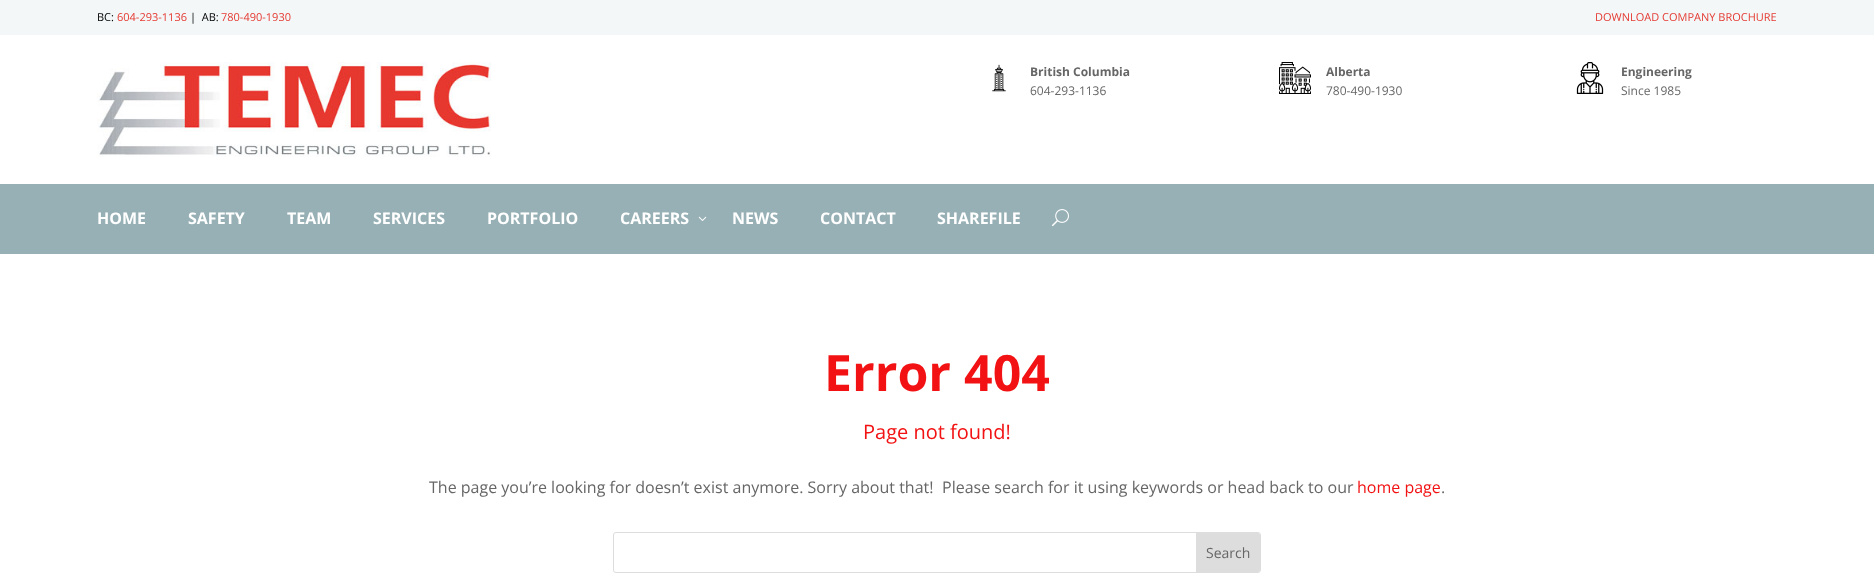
<svg xmlns="http://www.w3.org/2000/svg" width="1874" height="579" viewBox="0 0 1874 579">
  <rect width="100%" height="100%" fill="rgb(255,255,255)"/>
  <rect x="0" y="0" width="1874" height="35" fill="rgb(243,247,248)"/>
  <text x="97" y="21" font-family="Open Sans" font-size="11" fill="rgb(0,0,0)">BC:</text>
  <text x="117" y="21" font-family="Open Sans" font-size="11" fill="rgb(229,58,50)">604-293-1136</text>
  <text x="190" y="21" font-family="Open Sans" font-size="11" fill="rgb(0,0,0)" xml:space="preserve">|  AB:</text>
  <g font-family="Open Sans" font-size="11" fill="rgb(229,58,50)">
    <text x="221" y="21">780-490-1930</text>
    <text x="1595" y="21">DOWNLOAD COMPANY BROCHURE</text>
  </g>
  <image x="97" y="62" width="394" height="95" href="pic1.png"/>
  <image x="992" y="64" width="14" height="28" href="pic2.png"/>
  <text x="1030" y="76" font-family="Open Sans" font-size="12" font-weight="bold" fill="rgb(102,102,102)">British Columbia</text>
  <text x="1030" y="95" font-family="Open Sans" font-size="12" fill="rgb(102,102,102)">604-293-1136</text>
  <image x="1279" y="62" width="32" height="32" href="pic3.png"/>
  <text x="1326" y="76" font-family="Open Sans" font-size="12" font-weight="bold" fill="rgb(102,102,102)">Alberta</text>
  <text x="1326" y="95" font-family="Open Sans" font-size="12" fill="rgb(102,102,102)">780-490-1930</text>
  <image x="1576" y="62" width="28" height="32" href="pic4.png"/>
  <text x="1621" y="76" font-family="Open Sans" font-size="12" font-weight="bold" fill="rgb(102,102,102)">Engineering</text>
  <text x="1621" y="95" font-family="Open Sans" font-size="12" fill="rgb(102,102,102)">Since 1985</text>
  <rect x="0" y="184" width="1874" height="70" fill="rgb(151,176,181)"/>
  <g font-family="Open Sans" font-size="16" font-weight="bold" fill="rgb(255,255,255)">
    <text x="97" y="224">HOME</text>
    <text x="188" y="224">SAFETY</text>
    <text x="287" y="224">TEAM</text>
    <text x="373" y="224">SERVICES</text>
    <text x="487" y="224">PORTFOLIO</text>
    <text x="620" y="224">CAREERS</text>
  </g>
  <image x="698" y="216" width="9" height="5" href="pic5.png"/>
  <g font-family="Open Sans" font-size="16" font-weight="bold" fill="rgb(255,255,255)">
    <text x="732" y="224">NEWS</text>
    <text x="820" y="224">CONTACT</text>
    <text x="937" y="224">SHAREFILE</text>
  </g>
  <image x="1052" y="209" width="17" height="18" href="pic6.png"/>
  <text x="824" y="391" font-family="Open Sans" font-size="50" font-weight="bold" fill="rgb(242,18,19)">Error 404</text>
  <text x="863" y="439" font-family="Open Sans" font-size="20" fill="rgb(242,18,19)">Page not found!</text>
  <g font-family="Open Sans" font-size="16" fill="rgb(102,102,102)">
    <text x="429" y="493">The page you’re looking for doesn’t exist anymore. Sorry about that!</text>
    <text x="942" y="493">Please search for it using keywords or head back to our</text>
  </g>
  <text x="1357" y="493" font-family="Open Sans" font-size="16" fill="rgb(242,18,19)">home page</text>
  <text x="1441" y="493" font-family="Open Sans" font-size="16" fill="rgb(102,102,102)">.</text>
  <rect x="613.5" y="532.5" width="647" height="40" rx="2.5" fill="none" stroke="rgb(221,221,221)"/>
  <path d="M1196 533H1258C1259 533 1260 534 1260 535V570C1260 571 1259 572 1258 572H1196Z" fill="rgb(221,221,221)"/>
  <text x="1206" y="558" font-family="Open Sans" font-size="14" fill="rgb(102,102,102)">Search</text>
</svg>
